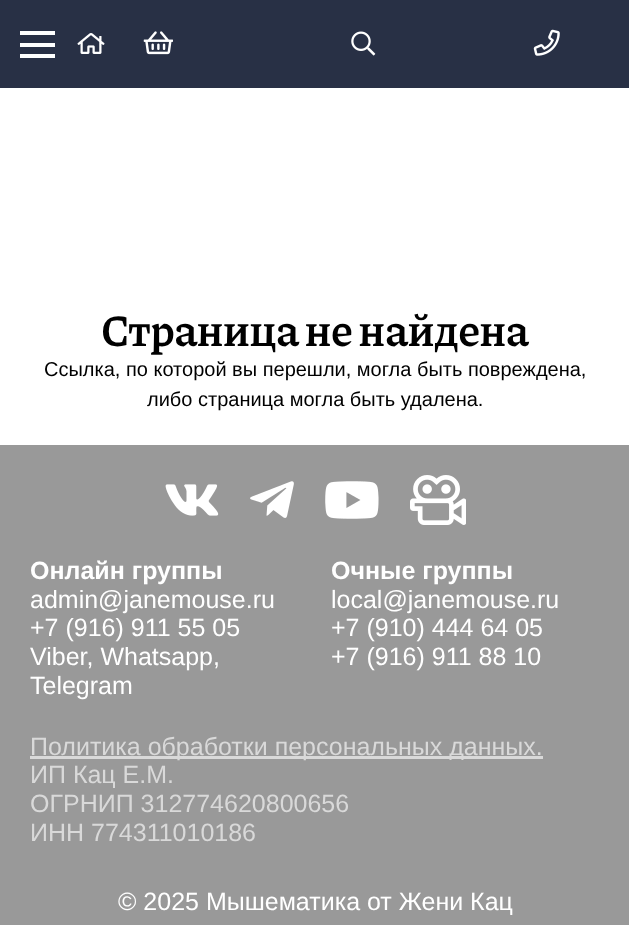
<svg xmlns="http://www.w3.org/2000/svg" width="629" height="925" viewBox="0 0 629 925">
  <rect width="100%" height="100%" fill="rgb(255,255,255)"/>
  <rect x="0" y="0" width="629" height="88" fill="rgb(40,48,69)"/>
  <rect x="20" y="43" width="35" height="4" fill="rgb(255,255,255)"/>
  <rect x="20" y="31" width="35" height="4" fill="rgb(255,255,255)"/>
  <rect x="20" y="54" width="35" height="4" fill="rgb(255,255,255)"/>
  <image x="77" y="33" width="28" height="21" href="pic1.png"/>
  <image x="143" y="31" width="30" height="24" href="pic2.png"/>
  <image x="351" y="31" width="25" height="25" href="pic3.png"/>
  <image x="533" y="29" width="27" height="27" href="pic4.png"/>
  <text x="100" y="346" font-family="Piazzolla" font-size="44" font-weight="bold" letter-spacing="-0.9" fill="rgb(0,0,0)">Страница не найдена</text>
  <g font-family="Liberation Sans" font-size="20" fill="rgb(0,0,0)">
    <text x="44" y="376">Ссылка, по которой вы перешли, могла быть повреждена,</text>
    <text x="147" y="406">либо страница могла быть удалена.</text>
  </g>
  <rect x="0" y="445" width="629" height="480" fill="rgb(153,153,153)"/>
  <image x="165" y="484" width="54" height="32" href="pic5.png"/>
  <image x="250" y="481" width="44" height="37" href="pic6.png"/>
  <image x="325" y="481" width="54" height="38" href="pic7.png"/>
  <image x="410" y="475" width="56" height="50" href="pic8.png"/>
  <text x="30" y="579" font-family="Liberation Sans" font-size="25" font-weight="bold" fill="rgb(255,255,255)">Онлайн группы</text>
  <g font-family="Liberation Sans" font-size="25" fill="rgb(255,255,255)">
    <text>
      <tspan x="30" y="608">admin@janemouse.ru</tspan>
      <tspan x="30" y="636">+7 (916) 911 55 05</tspan>
      <tspan x="30" y="665">Viber, Whatsapp,</tspan>
      <tspan x="30" y="694">Telegram</tspan>
    </text>
  </g>
  <text x="331" y="579" font-family="Liberation Sans" font-size="25" font-weight="bold" fill="rgb(255,255,255)">Очные группы</text>
  <g font-family="Liberation Sans" font-size="25" fill="rgb(255,255,255)">
    <text>
      <tspan x="331" y="608">local@janemouse.ru</tspan>
      <tspan x="331" y="636">+7 (910) 444 64 05</tspan>
      <tspan x="331" y="665">+7 (916) 911 88 10</tspan>
    </text>
  </g>
  <rect x="30" y="756" width="513" height="3" fill="rgb(217,217,217)"/>
  <g font-family="Liberation Sans" font-size="25" fill="rgb(217,217,217)">
    <text>
      <tspan x="30" y="755">Политика обработки персональных данных.</tspan>
      <tspan x="30" y="783">ИП Кац Е.М.</tspan>
      <tspan x="30" y="812">ОГРНИП 312774620800656</tspan>
      <tspan x="30" y="841">ИНН 774311010186</tspan>
    </text>
  </g>
  <text x="118" y="910" font-family="Liberation Sans" font-size="25" fill="rgb(255,255,255)">© 2025 Мышематика от Жени Кац</text>
</svg>
